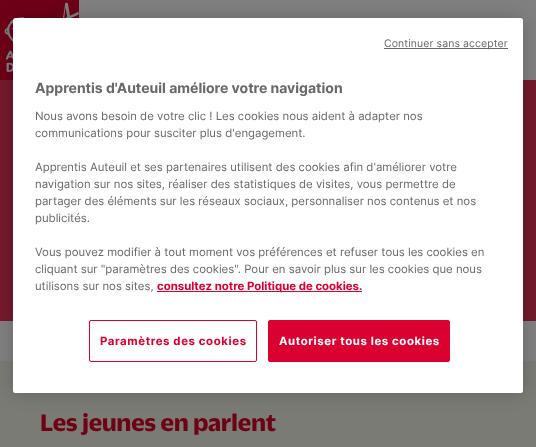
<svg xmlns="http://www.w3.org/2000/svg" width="536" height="447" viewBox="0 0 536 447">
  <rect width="100%" height="100%" fill="rgb(128,128,128)"/>
  <image x="0" y="0" width="79" height="80" href="pic1.png"/>
  <rect x="0" y="80" width="536" height="241" fill="rgb(116,26,44)"/>
  <rect x="0" y="361" width="536" height="86" fill="rgb(123,123,118)"/>
  <rect x="13" y="18" width="510" height="375" rx="2.5" fill="rgba(0,0,0,0.2)" filter="blur(9px)"/>
  <rect x="13" y="18" width="510" height="375" rx="2.5" fill="rgb(255,255,255)"/>
  <rect x="384" y="48" width="124" height="1" fill="rgb(105,105,105)"/>
  <text x="384" y="47" font-family="Inter" font-size="10.5" letter-spacing="0.1" fill="rgb(105,105,105)">Continuer sans accepter</text>
  <text x="35" y="93" font-family="Inter" font-size="14" font-weight="bold" fill="rgb(105,105,105)">Apprentis d'Auteuil améliore votre navigation</text>
  <g font-family="Inter" font-size="11.4" fill="rgb(105,105,105)">
    <text>
      <tspan x="35" y="120">Nous avons besoin de votre clic ! Les cookies nous aident à adapter nos</tspan>
      <tspan x="35" y="137">communications pour susciter plus d'engagement.</tspan>
    </text>
    <text>
      <tspan x="35" y="171">Apprentis Auteuil et ses partenaires utilisent des cookies afin d'améliorer votre</tspan>
      <tspan x="35" y="188">navigation sur nos sites, réaliser des statistiques de visites, vous permettre de</tspan>
      <tspan x="35" y="205">partager des éléments sur les réseaux sociaux, personnaliser nos contenus et nos</tspan>
      <tspan x="35" y="222">publicités.</tspan>
    </text>
    <text>
      <tspan x="35" y="256">Vous pouvez modifier à tout moment vos préférences et refuser tous les cookies en</tspan>
      <tspan x="35" y="273">cliquant sur "paramètres des cookies". Pour en savoir plus sur les cookies que nous</tspan>
      <tspan x="35" y="290">utilisons sur nos sites,</tspan>
    </text>
  </g>
  <rect x="157" y="291" width="205" height="1" fill="rgb(218,0,48)"/>
  <text x="157" y="290" font-family="Inter" font-size="11.4" font-weight="bold" fill="rgb(218,0,48)">consultez notre Politique de cookies.</text>
  <rect x="89.5" y="320.5" width="167" height="41" rx="1.5" fill="none" stroke="rgb(218,0,48)"/>
  <text x="100" y="345" font-family="Inter" font-size="11.4" font-weight="bold" letter-spacing="0.6" fill="rgb(218,0,48)">Paramètres des cookies</text>
  <rect x="268.5" y="320.5" width="181" height="41" rx="1.5" fill="rgb(218,0,48)" stroke="rgb(218,0,48)"/>
  <text x="279" y="345" font-family="Inter" font-size="11.4" font-weight="bold" letter-spacing="0.6" fill="rgb(255,255,255)">Autoriser tous les cookies</text>
  <text x="40" y="431" font-family="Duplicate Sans" font-size="26" font-weight="bold" fill="rgb(110,3,22)">Les jeunes en parlent</text>
</svg>
